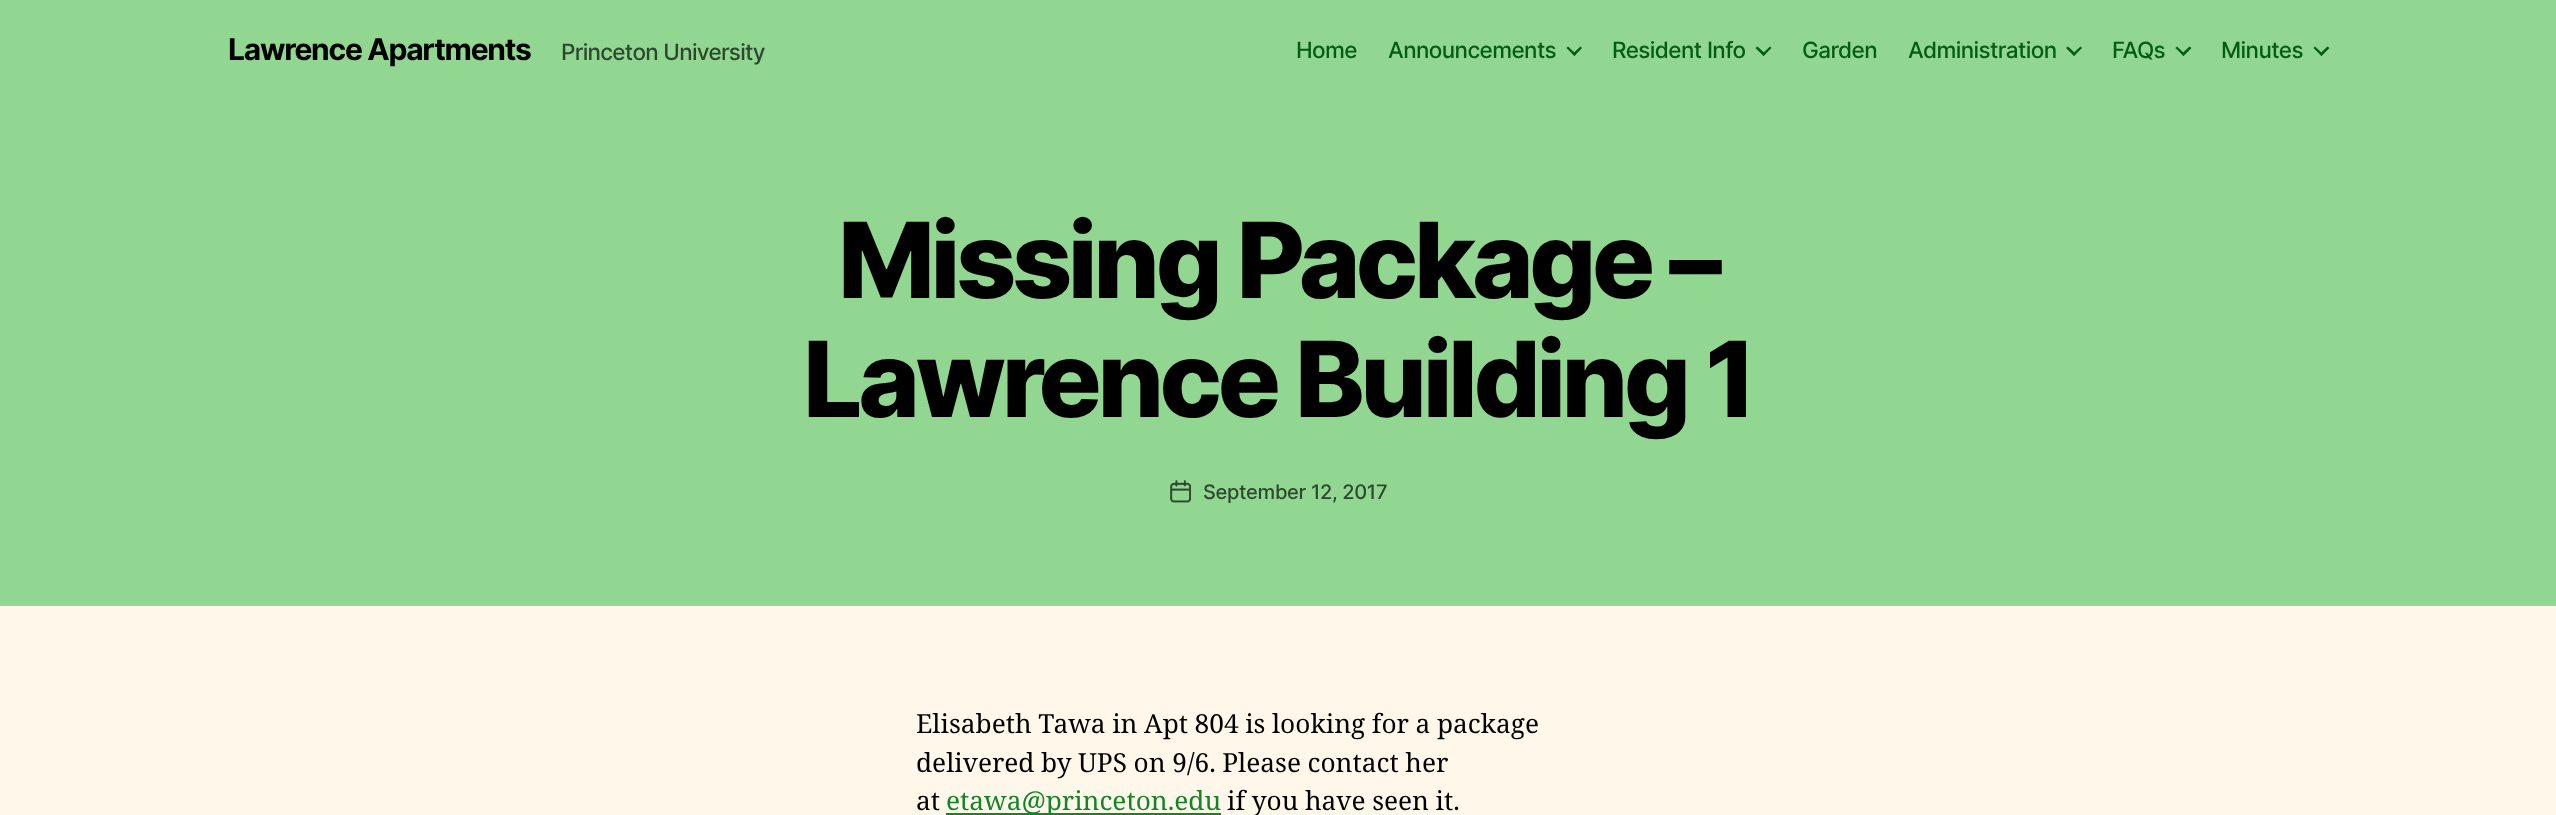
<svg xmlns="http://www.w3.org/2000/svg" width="2556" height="815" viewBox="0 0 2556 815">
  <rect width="100%" height="100%" fill="rgb(255,248,234)"/>
  <rect x="0" y="0" width="2556" height="606" fill="rgb(145,214,145)"/>
  <text x="228" y="60" font-family="Inter" font-size="30" font-weight="bold" letter-spacing="-1.25" fill="rgb(0,0,0)">Lawrence Apartments</text>
  <text x="561" y="60" font-family="Inter" font-size="22.5" font-weight="500" letter-spacing="-0.7" fill="rgb(45,72,45)">Princeton University</text>
  <g font-family="Inter" font-size="22.5" font-weight="500" letter-spacing="-0.6" fill="rgb(3,93,18)">
    <text x="1296" y="58">Home</text>
    <text x="1388" y="58">Announcements</text>
  </g>
  <path d="M1566.5 48L1568 46.5L1576 54L1574.5 56Z" fill="rgb(3,93,18)"/>
  <path d="M1572.5 54L1580.5 46.5L1582 48L1574.5 56Z" fill="rgb(3,93,18)"/>
  <text x="1612" y="58" font-family="Inter" font-size="22.5" font-weight="500" letter-spacing="-0.6" fill="rgb(3,93,18)">Resident Info</text>
  <path d="M1755.5 48L1757.5 46.5L1765.5 54L1763.5 56Z" fill="rgb(3,93,18)"/>
  <path d="M1762 54L1770 46.5L1771.5 48L1763.5 56Z" fill="rgb(3,93,18)"/>
  <g font-family="Inter" font-size="22.5" font-weight="500" letter-spacing="-0.6" fill="rgb(3,93,18)">
    <text x="1802" y="58">Garden</text>
    <text x="1908" y="58">Administration</text>
  </g>
  <path d="M2066 48L2068 46.5L2076 54L2074 56Z" fill="rgb(3,93,18)"/>
  <path d="M2072.5 54L2080.5 46.5L2082 48L2074 56Z" fill="rgb(3,93,18)"/>
  <text x="2112" y="58" font-family="Inter" font-size="22.5" font-weight="500" letter-spacing="-0.6" fill="rgb(3,93,18)">FAQs</text>
  <path d="M2175.5 48L2177 46.5L2185 54L2183.5 56Z" fill="rgb(3,93,18)"/>
  <path d="M2181.5 54L2189.5 46.5L2191.5 48L2183.5 56Z" fill="rgb(3,93,18)"/>
  <text x="2221" y="58" font-family="Inter" font-size="22.5" font-weight="500" letter-spacing="-0.6" fill="rgb(3,93,18)">Minutes</text>
  <path d="M2313.5 48L2315 46.5L2323 54L2321.5 56Z" fill="rgb(3,93,18)"/>
  <path d="M2319.5 54L2327.5 46.5L2329.5 48L2321.5 56Z" fill="rgb(3,93,18)"/>
  <g font-family="Inter" font-size="105" font-weight="800" letter-spacing="-4.4" fill="rgb(0,0,0)">
    <text x="838" y="298">Missing Package –</text>
    <text x="803" y="417">Lawrence Building 1</text>
  </g>
  <image x="1170" y="480" width="21" height="23" href="pic1.png"/>
  <text x="1203" y="499" font-family="Inter" font-size="20" font-weight="500" letter-spacing="-0.3" fill="rgb(45,72,45)">September 12, 2017</text>
  <g font-family="Noto Serif" font-size="26.25" fill="rgb(0,0,0)">
    <text>
      <tspan x="916" y="733" word-spacing="-0.25">Elisabeth Tawa in Apt 804 is looking for a package</tspan>
      <tspan x="916" y="772" word-spacing="-0.25">delivered by UPS on 9/6. Please contact her</tspan>
      <tspan x="916" y="810">at</tspan>
    </text>
  </g>
  <rect x="946" y="813" width="275" height="2" fill="rgb(19,133,40)"/>
  <text x="946" y="810" font-family="Noto Serif" font-size="26.25" fill="rgb(19,133,40)">etawa@princeton.edu</text>
  <text x="1227" y="810" word-spacing="-0.25" font-family="Noto Serif" font-size="26.25" fill="rgb(0,0,0)">if you have seen it.</text>
</svg>
